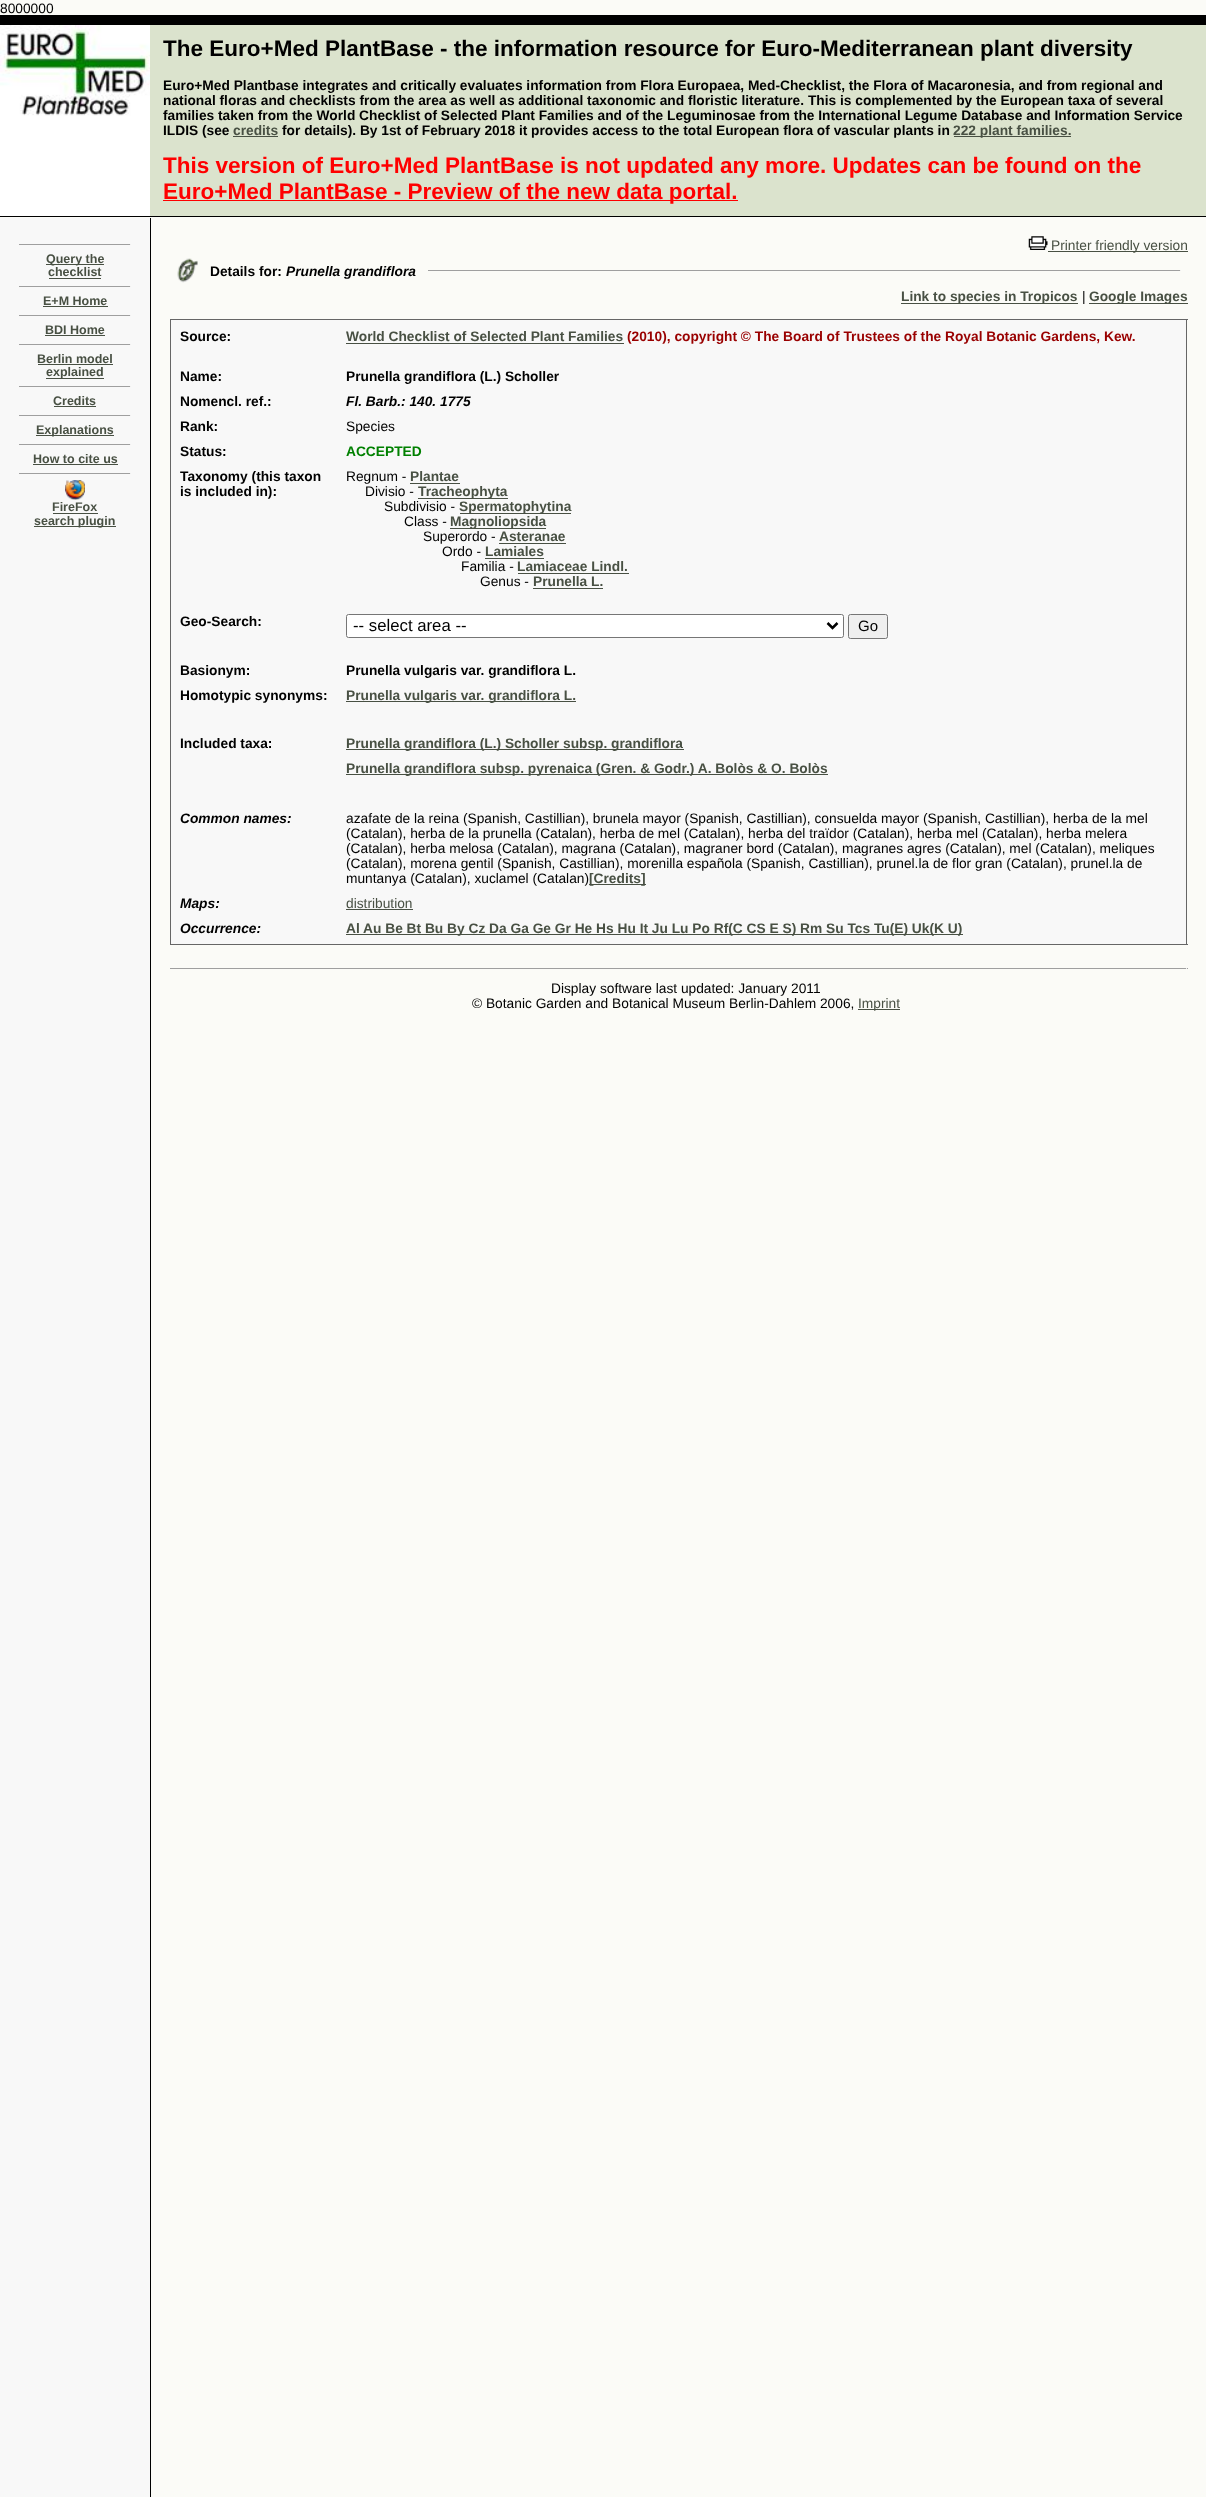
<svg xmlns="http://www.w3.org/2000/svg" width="1206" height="2497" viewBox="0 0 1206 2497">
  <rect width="100%" height="100%" fill="rgb(251,251,247)"/>
  <text x="0" y="13" font-family="Liberation Sans" font-size="13.75" fill="rgb(0,0,0)">8000000</text>
  <rect x="0" y="15" width="1206" height="10" fill="rgb(0,0,0)"/>
  <rect x="150" y="25" width="1056" height="191" fill="rgb(219,227,205)"/>
  <image x="0" y="25" width="150" height="191" href="pic1.png"/>
  <text x="163" y="56" font-family="Liberation Sans" font-size="22.5" font-weight="bold" fill="rgb(0,0,0)">The Euro+Med PlantBase - the information resource for Euro-Mediterranean plant diversity</text>
  <g font-family="Liberation Sans" font-size="13.75" font-weight="bold" fill="rgb(0,0,0)">
    <text>
      <tspan x="163" y="90">Euro+Med Plantbase integrates and critically evaluates information from Flora Europaea, Med-Checklist, the Flora of Macaronesia, and from regional and</tspan>
      <tspan x="163" y="105">national floras and checklists from the area as well as additional taxonomic and floristic literature. This is complemented by the European taxa of several</tspan>
      <tspan x="163" y="120">families taken from the World Checklist of Selected Plant Families and of the Leguminosae from the International Legume Database and Information Service</tspan>
      <tspan x="163" y="135">ILDIS (see</tspan>
    </text>
  </g>
  <text x="233" y="135" font-family="Liberation Sans" font-size="13.75" font-weight="bold" fill="rgb(72,80,67)">credits</text>
  <rect x="233" y="136" width="45" height="1" fill="rgb(72,80,67)"/>
  <text x="282" y="135" font-family="Liberation Sans" font-size="13.75" font-weight="bold" fill="rgb(0,0,0)">for details). By 1st of February 2018 it provides access to the total European flora of vascular plants in</text>
  <rect x="954" y="136" width="117" height="1" fill="rgb(72,80,67)"/>
  <text x="953" y="135" font-family="Liberation Sans" font-size="13.75" font-weight="bold" fill="rgb(72,80,67)">222 plant families.</text>
  <text x="163" y="173" font-family="Liberation Sans" font-size="22.5" font-weight="bold" fill="rgb(255,0,0)">This version of Euro+Med PlantBase is not updated any more. Updates can be found on the</text>
  <rect x="163" y="200" width="575" height="1" fill="rgb(255,0,0)"/>
  <text x="163" y="199" font-family="Liberation Sans" font-size="22.5" font-weight="bold" fill="rgb(255,0,0)">Euro+Med PlantBase - Preview of the new data portal.</text>
  <rect x="0" y="216" width="1206" height="1" fill="rgb(0,0,0)"/>
  <rect x="0" y="218" width="150" height="2279" fill="rgb(248,248,248)"/>
  <rect x="19" y="244" width="112" height="1" fill="rgb(159,159,159)"/>
  <rect x="130" y="244" width="1" height="1" fill="rgb(238,238,238)"/>
  <rect x="46" y="264" width="58" height="1" fill="rgb(72,80,67)"/>
  <g font-family="Liberation Sans" font-size="12.5" font-weight="bold" fill="rgb(72,80,67)">
    <text x="46" y="263">Query the</text>
    <text x="48" y="276">checklist</text>
  </g>
  <rect x="49" y="278" width="52" height="1" fill="rgb(72,80,67)"/>
  <rect x="19" y="286" width="112" height="1" fill="rgb(159,159,159)"/>
  <rect x="130" y="286" width="1" height="1" fill="rgb(238,238,238)"/>
  <text x="43" y="305" font-family="Liberation Sans" font-size="12.5" font-weight="bold" fill="rgb(72,80,67)">E+M Home</text>
  <rect x="43" y="306" width="65" height="1" fill="rgb(72,80,67)"/>
  <rect x="19" y="315" width="112" height="1" fill="rgb(159,159,159)"/>
  <rect x="130" y="315" width="1" height="1" fill="rgb(238,238,238)"/>
  <text x="45" y="334" font-family="Liberation Sans" font-size="12.5" font-weight="bold" fill="rgb(72,80,67)">BDI Home</text>
  <rect x="45" y="335" width="60" height="1" fill="rgb(72,80,67)"/>
  <rect x="19" y="344" width="112" height="1" fill="rgb(159,159,159)"/>
  <rect x="130" y="344" width="1" height="1" fill="rgb(238,238,238)"/>
  <text x="37" y="363" font-family="Liberation Sans" font-size="12.5" font-weight="bold" fill="rgb(72,80,67)">Berlin model</text>
  <rect x="38" y="364" width="75" height="1" fill="rgb(72,80,67)"/>
  <rect x="46" y="378" width="58" height="1" fill="rgb(72,80,67)"/>
  <text x="46" y="376" font-family="Liberation Sans" font-size="12.5" font-weight="bold" fill="rgb(72,80,67)">explained</text>
  <rect x="19" y="386" width="112" height="1" fill="rgb(159,159,159)"/>
  <rect x="130" y="386" width="1" height="1" fill="rgb(238,238,238)"/>
  <text x="53" y="405" font-family="Liberation Sans" font-size="12.5" font-weight="bold" fill="rgb(72,80,67)">Credits</text>
  <rect x="54" y="406" width="42" height="1" fill="rgb(72,80,67)"/>
  <rect x="19" y="415" width="112" height="1" fill="rgb(159,159,159)"/>
  <rect x="130" y="415" width="1" height="1" fill="rgb(238,238,238)"/>
  <rect x="36" y="435" width="78" height="1" fill="rgb(72,80,67)"/>
  <text x="36" y="434" font-family="Liberation Sans" font-size="12.5" font-weight="bold" fill="rgb(72,80,67)">Explanations</text>
  <rect x="19" y="444" width="112" height="1" fill="rgb(159,159,159)"/>
  <rect x="130" y="444" width="1" height="1" fill="rgb(238,238,238)"/>
  <text x="33" y="463" font-family="Liberation Sans" font-size="12.5" font-weight="bold" fill="rgb(72,80,67)">How to cite us</text>
  <rect x="33" y="464" width="85" height="1" fill="rgb(72,80,67)"/>
  <rect x="19" y="473" width="112" height="1" fill="rgb(159,159,159)"/>
  <rect x="130" y="473" width="1" height="1" fill="rgb(238,238,238)"/>
  <image x="65" y="480" width="20" height="20" href="pic2.png"/>
  <text x="52" y="511" font-family="Liberation Sans" font-size="12.5" font-weight="bold" fill="rgb(72,80,67)">FireFox</text>
  <rect x="53" y="513" width="45" height="1" fill="rgb(72,80,67)"/>
  <rect x="34" y="526" width="82" height="1" fill="rgb(72,80,67)"/>
  <text x="34" y="525" font-family="Liberation Sans" font-size="12.5" font-weight="bold" fill="rgb(72,80,67)">search plugin</text>
  <rect x="150" y="218" width="1" height="2279" fill="rgb(0,0,0)"/>
  <image x="1028" y="236" width="20" height="14" href="pic3.png"/>
  <rect x="1048" y="251" width="140" height="1" fill="rgb(72,80,67)"/>
  <text x="1051" y="250" font-family="Liberation Sans" font-size="13.75" fill="rgb(72,80,67)">Printer friendly version</text>
  <image x="177" y="258" width="21" height="25" href="pic4.png"/>
  <text x="210" y="276" font-family="Liberation Sans" font-size="13.75" font-weight="bold" fill="rgb(0,0,0)">Details for:</text>
  <text x="286" y="276" font-family="Liberation Sans" font-size="13.75" font-weight="bold" font-style="italic" fill="rgb(0,0,0)">Prunella grandiflora</text>
  <rect x="428" y="270" width="753" height="1" fill="rgb(159,159,159)"/>
  <rect x="1180" y="270" width="1" height="1" fill="rgb(238,238,238)"/>
  <rect x="901" y="303" width="177" height="1" fill="rgb(72,80,67)"/>
  <text x="901" y="301" font-family="Liberation Sans" font-size="13.75" font-weight="bold" fill="rgb(72,80,67)">Link to species in Tropicos</text>
  <text x="1082" y="301" font-family="Liberation Sans" font-size="13.75" fill="rgb(0,0,0)">|</text>
  <rect x="1089" y="303" width="99" height="1" fill="rgb(72,80,67)"/>
  <text x="1089" y="301" font-family="Liberation Sans" font-size="13.75" font-weight="bold" fill="rgb(72,80,67)">Google Images</text>
  <rect x="170" y="319" width="1018" height="1" fill="rgb(102,102,102)"/>
  <rect x="1186" y="319" width="1" height="626" fill="rgb(102,102,102)"/>
  <rect x="170" y="944" width="1018" height="1" fill="rgb(102,102,102)"/>
  <rect x="170" y="319" width="1" height="626" fill="rgb(102,102,102)"/>
  <rect x="171" y="320" width="1015" height="624" fill="rgb(248,248,248)"/>
  <text x="180" y="341" font-family="Liberation Sans" font-size="13.75" font-weight="bold" fill="rgb(0,0,0)">Source:</text>
  <text x="346" y="341" font-family="Liberation Sans" font-size="13.75" font-weight="bold" fill="rgb(72,80,67)">World Checklist of Selected Plant Families</text>
  <rect x="346" y="343" width="278" height="1" fill="rgb(72,80,67)"/>
  <text x="627" y="341" font-family="Liberation Sans" font-size="13.75" font-weight="bold" fill="rgb(153,0,0)">(2010), copyright © The Board of Trustees of the Royal Botanic Gardens, Kew.</text>
  <g font-family="Liberation Sans" font-size="13.75" font-weight="bold" fill="rgb(0,0,0)">
    <text x="180" y="381">Name:</text>
    <text x="346" y="381">Prunella grandiflora (L.) Scholler</text>
    <text x="180" y="406">Nomencl. ref.:</text>
  </g>
  <text x="346" y="406" font-family="Liberation Sans" font-size="13.75" font-weight="bold" font-style="italic" fill="rgb(0,0,0)">Fl. Barb.: 140. 1775</text>
  <text x="180" y="431" font-family="Liberation Sans" font-size="13.75" font-weight="bold" fill="rgb(0,0,0)">Rank:</text>
  <text x="346" y="431" font-family="Liberation Sans" font-size="13.75" fill="rgb(0,0,0)">Species</text>
  <text x="180" y="456" font-family="Liberation Sans" font-size="13.75" font-weight="bold" fill="rgb(0,0,0)">Status:</text>
  <text x="346" y="456" font-family="Liberation Sans" font-size="13.75" font-weight="bold" fill="rgb(0,128,0)">ACCEPTED</text>
  <g font-family="Liberation Sans" font-size="13.75" font-weight="bold" fill="rgb(0,0,0)">
    <text>
      <tspan x="180" y="481">Taxonomy (this taxon</tspan>
      <tspan x="180" y="496">is included in):</tspan>
    </text>
  </g>
  <text x="346" y="481" font-family="Liberation Sans" font-size="13.75" fill="rgb(0,0,0)">Regnum -</text>
  <text x="410" y="481" font-family="Liberation Sans" font-size="13.75" font-weight="bold" fill="rgb(72,80,67)">Plantae</text>
  <rect x="410" y="483" width="50" height="1" fill="rgb(72,80,67)"/>
  <text x="365" y="496" font-family="Liberation Sans" font-size="13.75" fill="rgb(0,0,0)">Divisio -</text>
  <rect x="418" y="498" width="90" height="1" fill="rgb(72,80,67)"/>
  <text x="418" y="496" font-family="Liberation Sans" font-size="13.75" font-weight="bold" fill="rgb(72,80,67)">Tracheophyta</text>
  <text x="384" y="511" font-family="Liberation Sans" font-size="13.75" fill="rgb(0,0,0)">Subdivisio -</text>
  <rect x="460" y="513" width="111" height="1" fill="rgb(72,80,67)"/>
  <text x="459" y="511" font-family="Liberation Sans" font-size="13.75" font-weight="bold" fill="rgb(72,80,67)">Spermatophytina</text>
  <text x="404" y="526" font-family="Liberation Sans" font-size="13.75" fill="rgb(0,0,0)">Class -</text>
  <rect x="450" y="528" width="96" height="1" fill="rgb(72,80,67)"/>
  <text x="450" y="526" font-family="Liberation Sans" font-size="13.75" font-weight="bold" fill="rgb(72,80,67)">Magnoliopsida</text>
  <text x="423" y="541" font-family="Liberation Sans" font-size="13.75" fill="rgb(0,0,0)">Superordo -</text>
  <text x="499" y="541" font-family="Liberation Sans" font-size="13.75" font-weight="bold" fill="rgb(72,80,67)">Asteranae</text>
  <rect x="499" y="543" width="67" height="1" fill="rgb(72,80,67)"/>
  <text x="442" y="556" font-family="Liberation Sans" font-size="13.75" fill="rgb(0,0,0)">Ordo -</text>
  <text x="485" y="556" font-family="Liberation Sans" font-size="13.75" font-weight="bold" fill="rgb(72,80,67)">Lamiales</text>
  <rect x="485" y="558" width="59" height="1" fill="rgb(72,80,67)"/>
  <text x="461" y="571" font-family="Liberation Sans" font-size="13.75" fill="rgb(0,0,0)">Familia -</text>
  <text x="517" y="571" font-family="Liberation Sans" font-size="13.75" font-weight="bold" fill="rgb(72,80,67)">Lamiaceae Lindl.</text>
  <rect x="518" y="573" width="111" height="1" fill="rgb(72,80,67)"/>
  <text x="480" y="586" font-family="Liberation Sans" font-size="13.75" fill="rgb(0,0,0)">Genus -</text>
  <text x="533" y="586" font-family="Liberation Sans" font-size="13.75" font-weight="bold" fill="rgb(72,80,67)">Prunella L.</text>
  <rect x="533" y="588" width="70" height="1" fill="rgb(72,80,67)"/>
  <text x="180" y="626" font-family="Liberation Sans" font-size="13.75" font-weight="bold" fill="rgb(0,0,0)">Geo-Search:</text>
  <rect x="346.5" y="614.5" width="497" height="23" rx="2" fill="rgb(255,255,255)" stroke="rgb(118,118,118)"/>
  <path d="M827.5 623L832.5 628L837.5 623" fill="none" stroke="rgb(0,0,0)" stroke-width="2.5"/>
  <text x="353" y="631" font-family="Liberation Sans" font-size="16.75" fill="rgb(0,0,0)">-- select area --</text>
  <rect x="848.5" y="614.5" width="39" height="24" rx="2" fill="rgb(239,239,239)" stroke="rgb(118,118,118)"/>
  <text x="858" y="631" font-family="Liberation Sans" font-size="15" fill="rgb(0,0,0)">Go</text>
  <g font-family="Liberation Sans" font-size="13.75" font-weight="bold" fill="rgb(0,0,0)">
    <text x="180" y="675">Basionym:</text>
    <text x="346" y="675">Prunella vulgaris var. grandiflora L.</text>
    <text x="180" y="700">Homotypic synonyms:</text>
  </g>
  <rect x="346" y="701" width="230" height="1" fill="rgb(72,80,67)"/>
  <text x="346" y="700" font-family="Liberation Sans" font-size="13.75" font-weight="bold" fill="rgb(72,80,67)">Prunella vulgaris var. grandiflora L.</text>
  <text x="180" y="748" font-family="Liberation Sans" font-size="13.75" font-weight="bold" fill="rgb(0,0,0)">Included taxa:</text>
  <rect x="346" y="749" width="338" height="1" fill="rgb(72,80,67)"/>
  <text x="346" y="748" font-family="Liberation Sans" font-size="13.75" font-weight="bold" fill="rgb(72,80,67)">Prunella grandiflora (L.) Scholler subsp. grandiflora</text>
  <rect x="346" y="774" width="482" height="1" fill="rgb(72,80,67)"/>
  <text x="346" y="773" font-family="Liberation Sans" font-size="13.75" font-weight="bold" fill="rgb(72,80,67)">Prunella grandiflora subsp. pyrenaica (Gren. &amp; Godr.) A. Bolòs &amp; O. Bolòs</text>
  <text x="180" y="823" font-family="Liberation Sans" font-size="13.75" font-weight="bold" font-style="italic" fill="rgb(0,0,0)">Common names:</text>
  <g font-family="Liberation Sans" font-size="13.75" fill="rgb(0,0,0)">
    <text>
      <tspan x="346" y="823">azafate de la reina (Spanish, Castillian), brunela mayor (Spanish, Castillian), consuelda mayor (Spanish, Castillian), herba de la mel</tspan>
      <tspan x="346" y="838">(Catalan), herba de la prunella (Catalan), herba de mel (Catalan), herba del traïdor (Catalan), herba mel (Catalan), herba melera</tspan>
      <tspan x="346" y="853">(Catalan), herba melosa (Catalan), magrana (Catalan), magraner bord (Catalan), magranes agres (Catalan), mel (Catalan), meliques</tspan>
      <tspan x="346" y="868">(Catalan), morena gentil (Spanish, Castillian), morenilla española (Spanish, Castillian), prunel.la de flor gran (Catalan), prunel.la de</tspan>
      <tspan x="346" y="883">muntanya (Catalan), xuclamel (Catalan)</tspan>
    </text>
  </g>
  <rect x="589" y="884" width="57" height="1" fill="rgb(72,80,67)"/>
  <text x="589" y="883" font-family="Liberation Sans" font-size="13.75" font-weight="bold" fill="rgb(72,80,67)">[Credits]</text>
  <text x="180" y="908" font-family="Liberation Sans" font-size="13.75" font-weight="bold" font-style="italic" fill="rgb(0,0,0)">Maps:</text>
  <text x="346" y="908" font-family="Liberation Sans" font-size="13.75" fill="rgb(72,80,67)">distribution</text>
  <rect x="346" y="909" width="67" height="1" fill="rgb(72,80,67)"/>
  <text x="180" y="933" font-family="Liberation Sans" font-size="13.75" font-weight="bold" font-style="italic" fill="rgb(0,0,0)">Occurrence:</text>
  <rect x="346" y="934" width="617" height="1" fill="rgb(72,80,67)"/>
  <text x="346" y="933" font-family="Liberation Sans" font-size="13.75" font-weight="bold" fill="rgb(72,80,67)">Al Au Be Bt Bu By Cz Da Ga Ge Gr He Hs Hu It Ju Lu Po Rf(C CS E S) Rm Su Tcs Tu(E) Uk(K U)</text>
  <rect x="170" y="968" width="1018" height="1" fill="rgb(159,159,159)"/>
  <rect x="1186" y="968" width="1" height="1" fill="rgb(238,238,238)"/>
  <g font-family="Liberation Sans" font-size="13.75" fill="rgb(0,0,0)">
    <text x="551" y="993">Display software last updated: January 2011</text>
    <text x="472" y="1008">© Botanic Garden and Botanical Museum Berlin-Dahlem 2006,</text>
  </g>
  <rect x="858" y="1009" width="42" height="1" fill="rgb(72,80,67)"/>
  <text x="858" y="1008" font-family="Liberation Sans" font-size="13.75" fill="rgb(72,80,67)">Imprint</text>
</svg>
